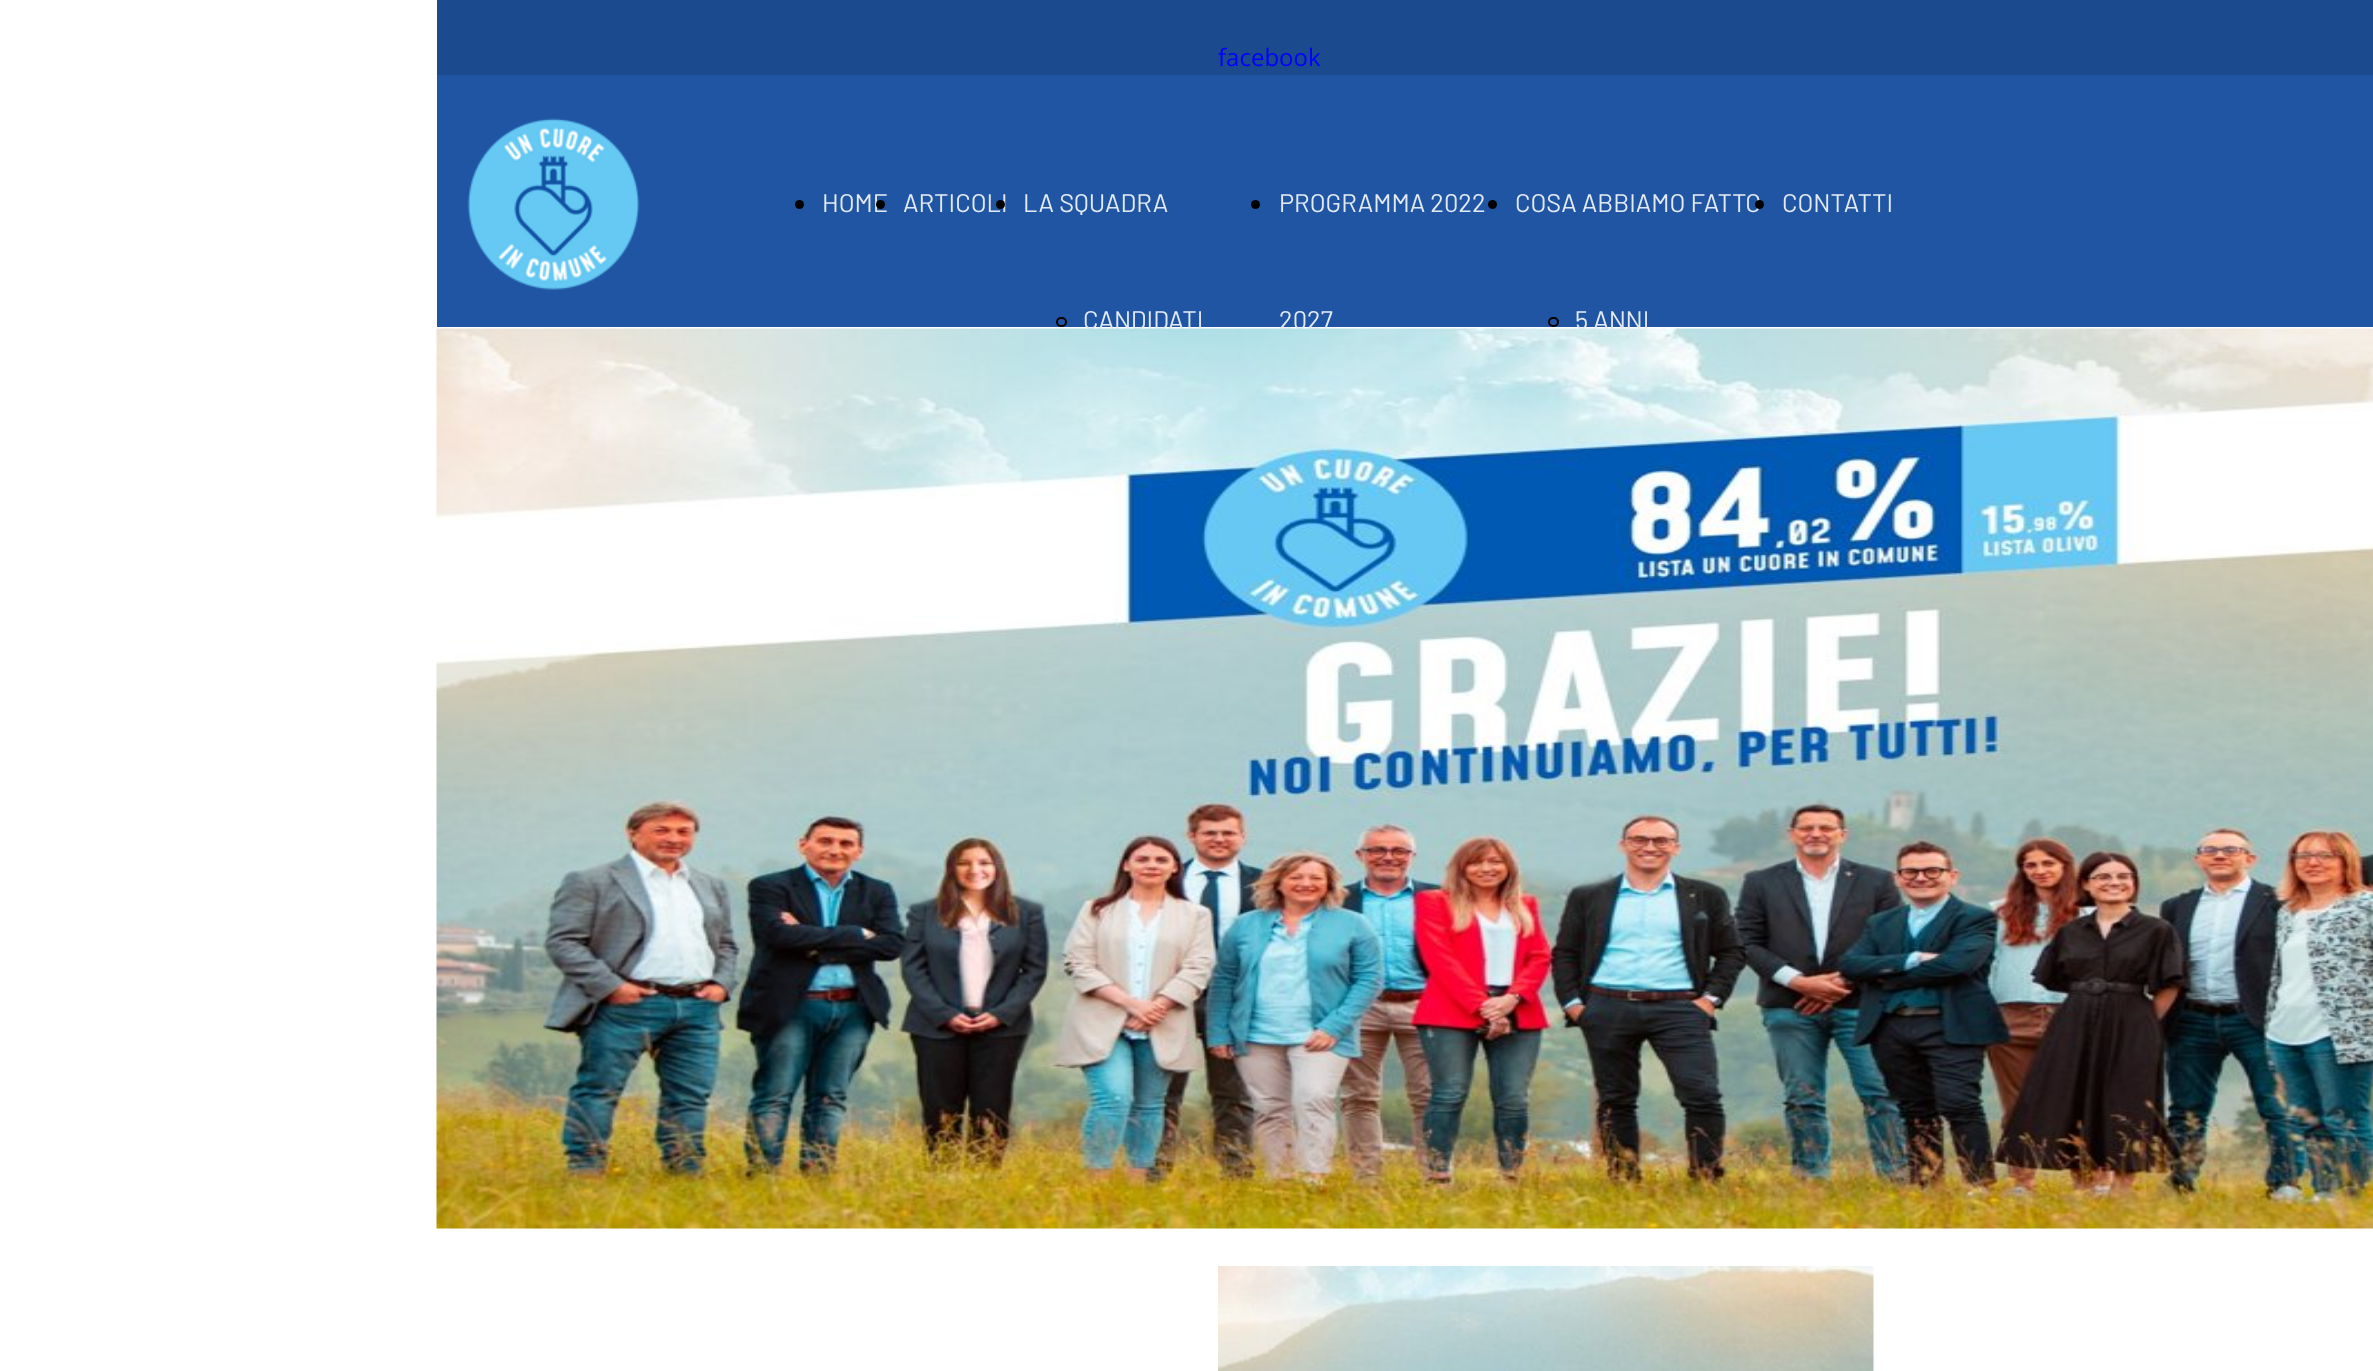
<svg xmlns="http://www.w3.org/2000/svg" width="2373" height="1371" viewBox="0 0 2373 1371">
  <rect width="100%" height="100%" fill="rgb(255,255,255)"/>
  <rect x="437" y="0" width="1936" height="75" fill="rgb(27,74,142)"/>
  <text x="1218" y="66" font-family="Open Sans" font-size="24" fill="rgb(0,0,255)">facebook</text>
  <rect x="437" y="75" width="1936" height="252" fill="rgb(31,85,163)"/>
  <image x="467" y="118" width="173" height="172" href="pic1.png"/>
  <circle cx="799.5" cy="204.5" r="4.5" fill="rgb(0,0,0)"/>
  <text x="822" y="212" font-family="Barlow" font-size="25.5" fill="rgb(227,234,244)">HOME</text>
  <circle cx="880.5" cy="204.5" r="4.5" fill="rgb(0,0,0)"/>
  <text x="903" y="212" font-family="Barlow" font-size="25.5" fill="rgb(227,234,244)">ARTICOLI</text>
  <circle cx="1000.5" cy="204.5" r="4.5" fill="rgb(0,0,0)"/>
  <text x="1023" y="212" font-family="Barlow" font-size="25.5" fill="rgb(227,234,244)">LA SQUADRA</text>
  <rect x="1057" y="318" width="9" height="8" rx="4" fill="none" stroke="rgb(0,0,0)" stroke-width="2"/>
  <text x="1083" y="329" font-family="Barlow" font-size="25.5" fill="rgb(227,234,244)">CANDIDATI</text>
  <circle cx="1255.5" cy="204.5" r="4.5" fill="rgb(0,0,0)"/>
  <g font-family="Barlow" font-size="25.5" fill="rgb(227,234,244)">
    <text x="1279" y="212">PROGRAMMA 2022</text>
    <text x="1279" y="329">2027</text>
  </g>
  <circle cx="1492.5" cy="204.5" r="4.5" fill="rgb(0,0,0)"/>
  <text x="1515" y="212" font-family="Barlow" font-size="25.5" fill="rgb(227,234,244)">COSA ABBIAMO FATTO</text>
  <rect x="1549" y="318" width="9" height="8" rx="4" fill="none" stroke="rgb(0,0,0)" stroke-width="2"/>
  <text x="1575" y="329" font-family="Barlow" font-size="25.5" fill="rgb(227,234,244)">5 ANNI</text>
  <circle cx="1759.5" cy="204.5" r="4.5" fill="rgb(0,0,0)"/>
  <text x="1782" y="212" font-family="Barlow" font-size="25.5" fill="rgb(227,234,244)">CONTATTI</text>
  <image x="436" y="328" width="1937" height="901" href="pic2.png"/>
  <image x="1218" y="1266" width="656" height="105" href="pic3.png"/>
</svg>
